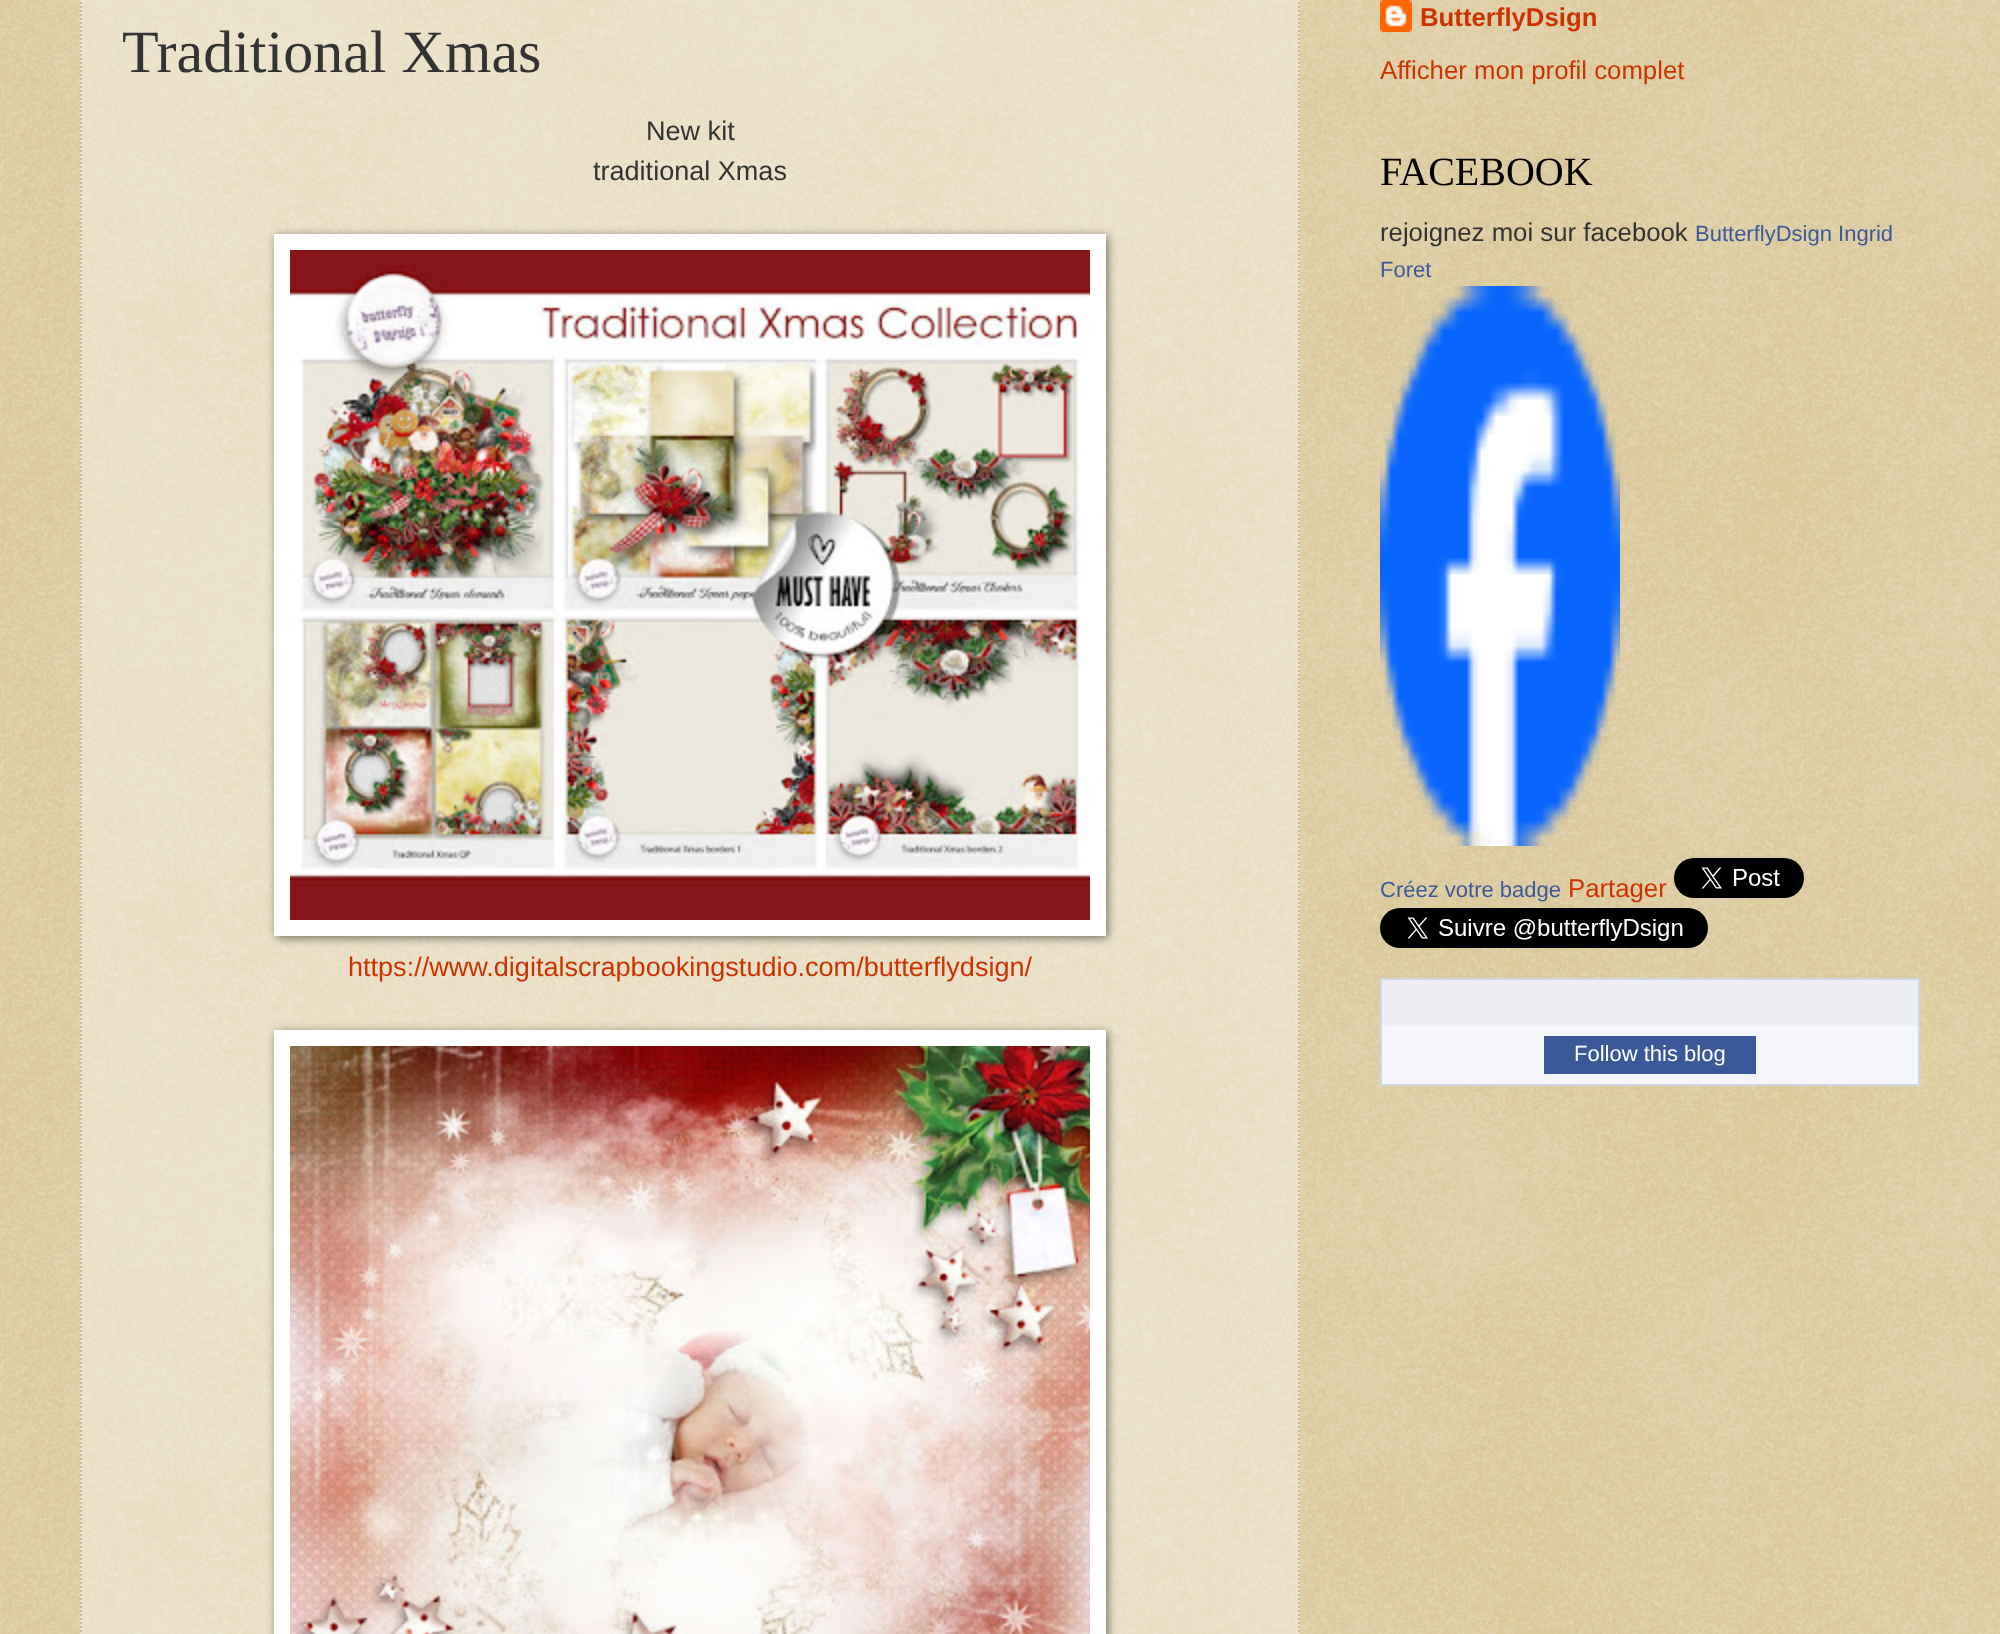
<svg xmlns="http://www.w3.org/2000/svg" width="2000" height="1634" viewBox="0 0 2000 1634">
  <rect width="100%" height="100%" fill="rgb(192,161,84)"/>
  <image x="0" y="0" width="2000" height="1634" href="pic1.png"/>
  <rect x="80" y="0" width="1220" height="1634" fill="rgba(255,255,255,0.4)"/>
  <path d="M1299-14V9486" fill="none" stroke="rgb(204,187,153)" stroke-width="2" stroke-dasharray="2 2"/>
  <path d="M81-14V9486" fill="none" stroke="rgb(204,187,153)" stroke-width="2" stroke-dasharray="2 2"/>
  <text x="122" y="72" font-family="Liberation Serif" font-size="60" fill="rgb(51,51,51)">Traditional Xmas</text>
  <g font-family="Liberation Sans" font-size="27.05" fill="rgb(51,51,51)">
    <text x="646" y="140">New kit</text>
    <text x="593" y="180">traditional Xmas</text>
  </g>
  <rect x="276" y="236" width="832" height="702" fill="rgba(0,0,0,0.5)" filter="blur(5px)"/>
  <rect x="274" y="234" width="832" height="702" fill="rgb(255,255,255)"/>
  <image x="290" y="250" width="800" height="670" href="pic2.png"/>
  <text x="348" y="976" font-family="Liberation Sans" font-size="27.05" fill="rgb(204,51,0)">https://www.digitalscrapbookingstudio.com/butterflydsign/</text>
  <rect x="276" y="1032" width="832" height="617" fill="rgba(0,0,0,0.5)" filter="blur(5px)"/>
  <rect x="274" y="1030" width="832" height="604" fill="rgb(255,255,255)"/>
  <image x="290" y="1046" width="800" height="588" href="pic3.png"/>
  <image x="1380" y="0" width="32" height="32" href="pic4.png"/>
  <text x="1420" y="26" font-family="Liberation Sans" font-size="25.75" font-weight="bold" fill="rgb(204,51,0)">ButterflyDsign</text>
  <text x="1380" y="79" font-family="Liberation Sans" font-size="25.75" fill="rgb(204,51,0)">Afficher mon profil complet</text>
  <text x="1380" y="185" font-family="Liberation Serif" font-size="40" fill="rgb(0,0,0)">FACEBOOK</text>
  <text x="1380" y="241" font-family="Liberation Sans" font-size="25.75" fill="rgb(51,51,51)">rejoignez moi sur facebook</text>
  <g font-family="Liberation Sans" font-size="22" fill="rgb(59,89,152)">
    <text x="1695" y="241">ButterflyDsign Ingrid</text>
    <text x="1380" y="277">Foret</text>
  </g>
  <image x="1380" y="286" width="240" height="560" href="pic5.png"/>
  <text x="1380" y="897" font-family="Liberation Sans" font-size="22" fill="rgb(59,89,152)">Créez votre badge</text>
  <text x="1568" y="897" font-family="Liberation Sans" font-size="25.75" fill="rgb(204,51,0)">Partager</text>
  <image x="1674" y="858" width="130" height="40" href="pic6.png"/>
  <image x="1380" y="908" width="328" height="40" href="pic7.png"/>
  <rect x="1382" y="1026" width="536" height="58" fill="rgb(245,246,249)"/>
  <rect x="1381" y="979" width="538" height="106" fill="none" stroke="rgb(209,215,223)" stroke-width="2"/>
  <rect x="1382" y="980" width="536" height="46" fill="rgb(237,239,244)"/>
  <rect x="1544" y="1036" width="212" height="38" fill="rgb(59,89,152)"/>
  <text x="1574" y="1061" font-family="Liberation Sans" font-size="22" fill="rgb(255,255,255)">Follow this blog</text>
</svg>
